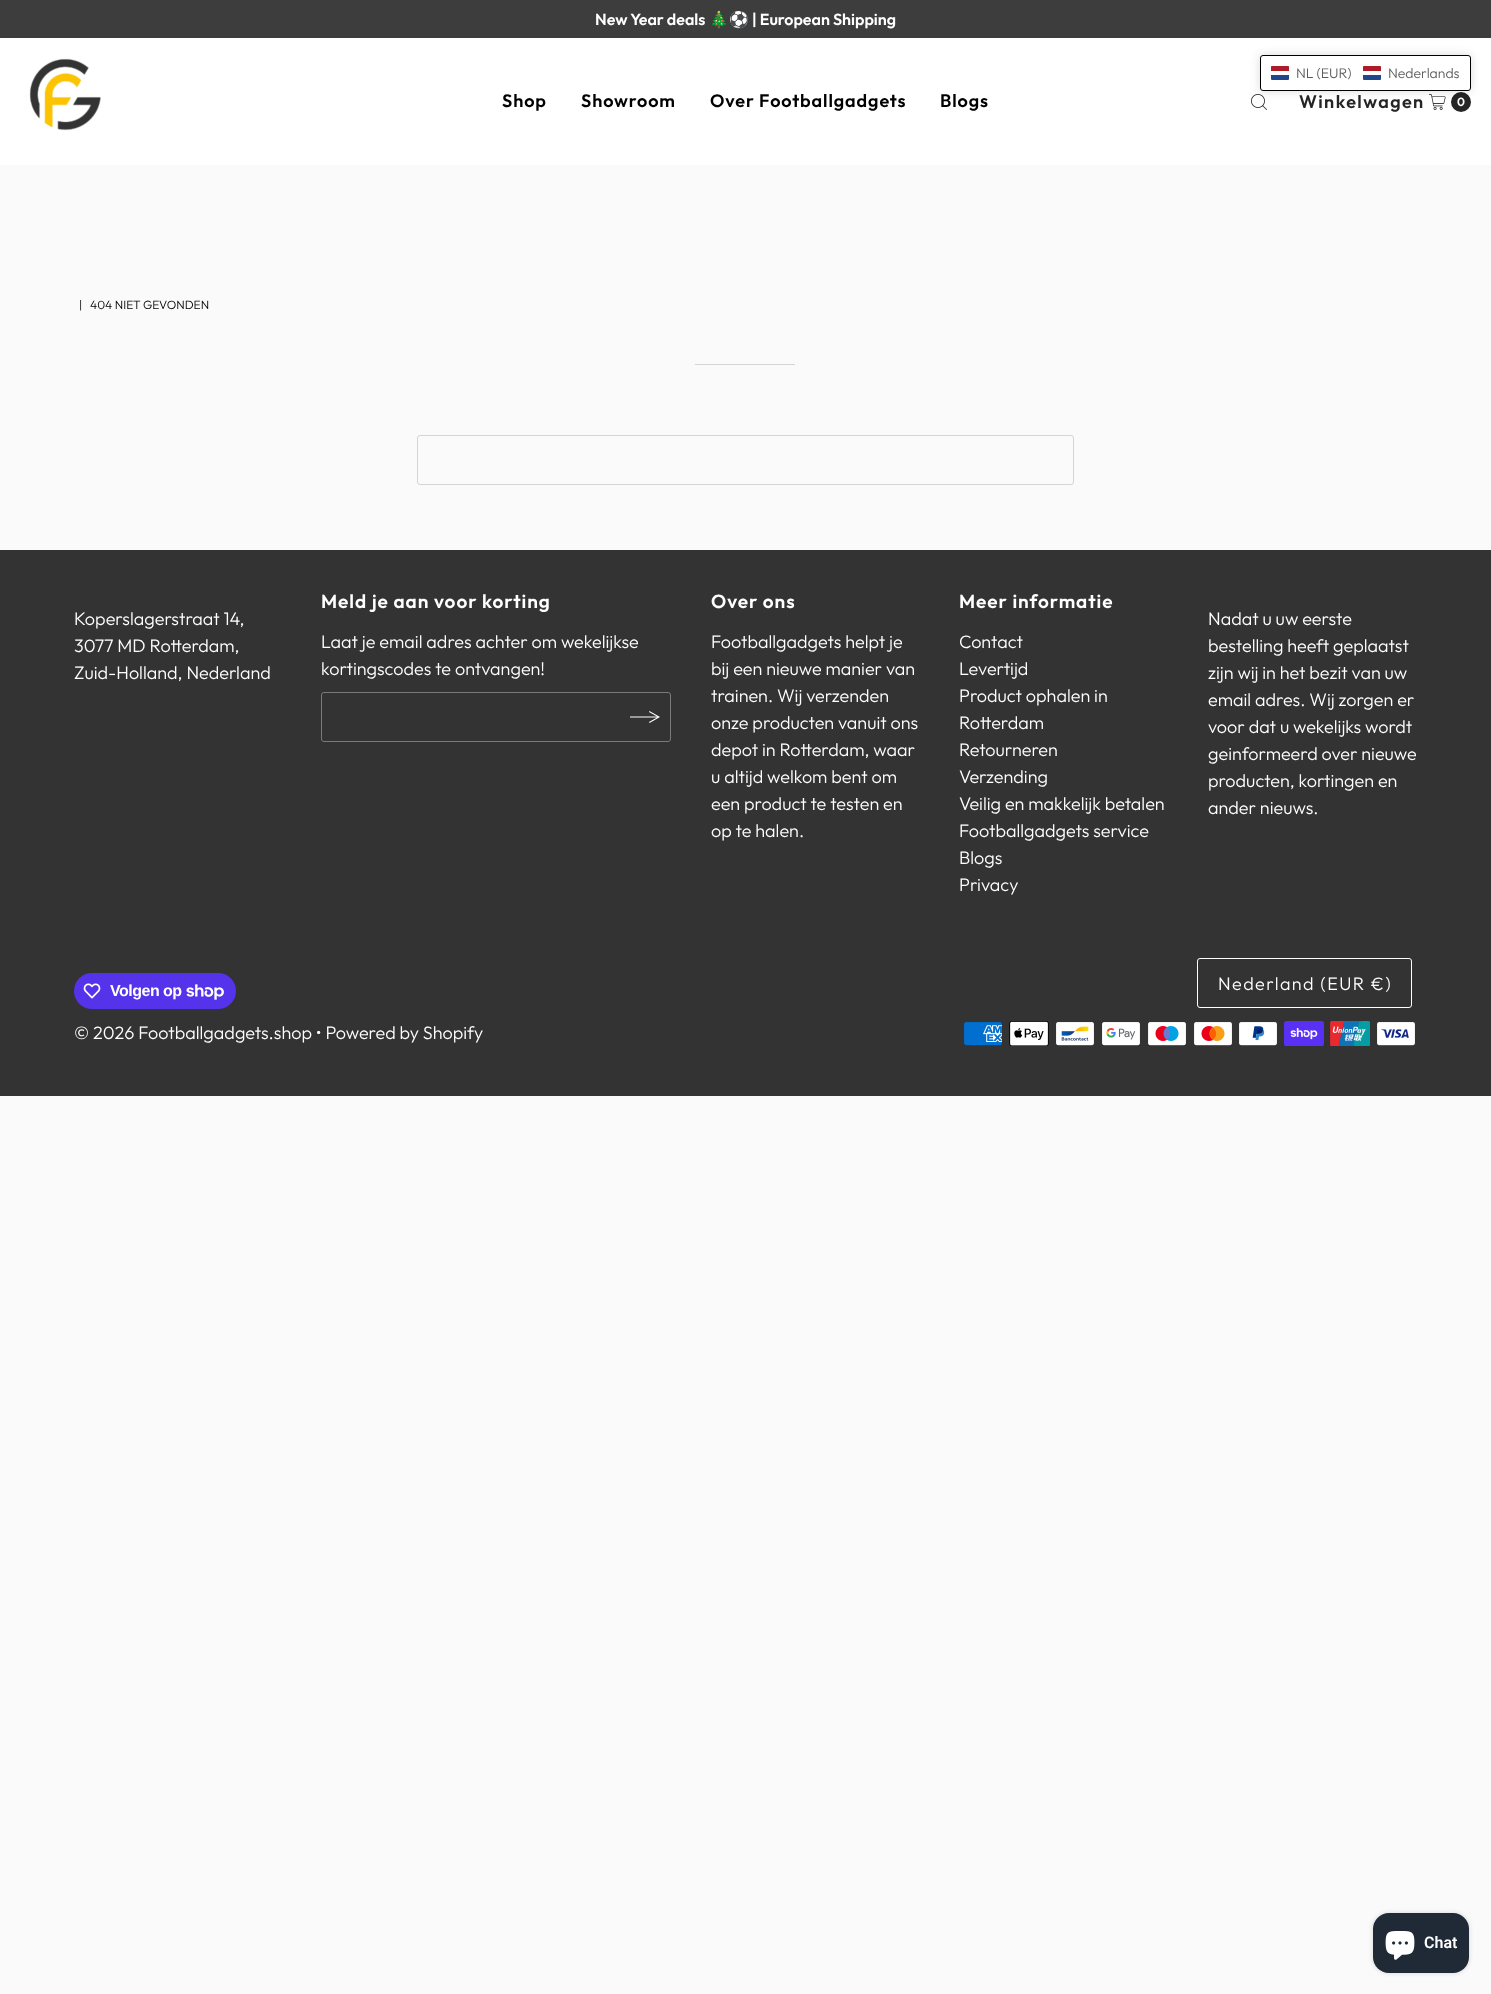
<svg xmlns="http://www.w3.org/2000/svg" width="1491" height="1994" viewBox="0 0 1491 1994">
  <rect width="100%" height="100%" fill="rgb(250,250,250)"/>
  <rect x="0" y="0" width="1491" height="38" fill="rgb(61,61,61)"/>
  <text x="595" y="25" font-family="Outfit" font-size="16" font-weight="600" fill="rgb(255,255,255)">New Year deals</text>
  <text x="709" y="25" font-family="Noto Color Emoji" font-size="16" fill="rgb(255,255,255)">🎄⚽</text>
  <text x="752" y="25" font-family="Outfit" font-size="16" font-weight="600" fill="rgb(255,255,255)">| European Shipping</text>
  <rect x="0" y="38" width="1491" height="127" fill="rgb(255,255,255)"/>
  <image x="29" y="58" width="72" height="73" href="pic1.png"/>
  <g font-family="Outfit" font-size="18" font-weight="600" letter-spacing="0.9" fill="rgb(0,0,0)">
    <text x="502" y="107">Shop</text>
    <text x="581" y="107">Showroom</text>
    <text x="710" y="107">Over Footballgadgets</text>
    <text x="940" y="107">Blogs</text>
  </g>
  <image x="1251" y="94" width="16" height="16" href="pic2.png"/>
  <text x="1299" y="108" font-family="Outfit" font-size="18" font-weight="600" letter-spacing="1.4" fill="rgb(37,37,37)">Winkelwagen</text>
  <image x="1429" y="94" width="17" height="16" href="pic3.png"/>
  <circle cx="1461" cy="102" r="10" fill="rgb(37,37,37)"/>
  <text x="1457" y="106" font-family="Outfit" font-size="12" font-weight="600" fill="rgb(255,255,255)">0</text>
  <g font-family="Outfit" font-size="12" font-weight="300" fill="rgb(0,0,0)">
    <text x="79" y="309">|</text>
    <text x="90" y="309">404 NIET GEVONDEN</text>
  </g>
  <rect x="695" y="364" width="100" height="1" fill="rgb(212,212,212)"/>
  <rect x="417.5" y="435.5" width="656" height="49" rx="2.5" fill="none" stroke="rgb(212,212,212)"/>
  <rect x="0" y="550" width="1491" height="546" fill="rgb(51,51,51)"/>
  <g font-family="Outfit" font-size="18" font-weight="300" fill="rgb(255,255,255)">
    <text>
      <tspan x="74" y="625">Koperslagerstraat 14,</tspan>
      <tspan x="74" y="652">3077 MD Rotterdam,</tspan>
      <tspan x="74" y="679">Zuid-Holland, Nederland</tspan>
    </text>
  </g>
  <text x="321" y="608" font-family="Outfit" font-size="19" font-weight="600" letter-spacing="0.95" fill="rgb(255,255,255)">Meld je aan voor korting</text>
  <g font-family="Outfit" font-size="18" font-weight="300" fill="rgb(255,255,255)">
    <text>
      <tspan x="321" y="648">Laat je email adres achter om wekelijkse</tspan>
      <tspan x="321" y="675">kortingscodes te ontvangen!</tspan>
    </text>
  </g>
  <rect x="321.5" y="692.5" width="349" height="49" rx="2.5" fill="none" stroke="rgb(122,122,122)"/>
  <path d="M649.5 711L660 717L649.5 723L649 722L657 717.5H630V716.5H657L649 712Z" fill="rgb(255,255,255)"/>
  <text x="711" y="608" font-family="Outfit" font-size="19" font-weight="600" letter-spacing="0.95" fill="rgb(255,255,255)">Over ons</text>
  <g font-family="Outfit" font-size="18" font-weight="300" fill="rgb(255,255,255)">
    <text>
      <tspan x="711" y="648">Footballgadgets helpt je</tspan>
      <tspan x="711" y="675">bij een nieuwe manier van</tspan>
      <tspan x="711" y="702">trainen. Wij verzenden</tspan>
      <tspan x="711" y="729">onze producten vanuit ons</tspan>
      <tspan x="711" y="756">depot in Rotterdam, waar</tspan>
      <tspan x="711" y="783">u altijd welkom bent om</tspan>
      <tspan x="711" y="810">een product te testen en</tspan>
      <tspan x="711" y="837">op te halen.</tspan>
    </text>
  </g>
  <text x="959" y="608" font-family="Outfit" font-size="19" font-weight="600" letter-spacing="0.95" fill="rgb(255,255,255)">Meer informatie</text>
  <g font-family="Outfit" font-size="18" font-weight="300" fill="rgb(255,255,255)">
    <text>
      <tspan x="959" y="648">Contact</tspan>
      <tspan x="959" y="675">Levertijd</tspan>
      <tspan x="959" y="702">Product ophalen in</tspan>
      <tspan x="959" y="729">Rotterdam</tspan>
      <tspan x="959" y="756">Retourneren</tspan>
      <tspan x="959" y="783">Verzending</tspan>
      <tspan x="959" y="810">Veilig en makkelijk betalen</tspan>
      <tspan x="959" y="837">Footballgadgets service</tspan>
      <tspan x="959" y="864">Blogs</tspan>
      <tspan x="959" y="891">Privacy</tspan>
    </text>
    <text>
      <tspan x="1208" y="625">Nadat u uw eerste</tspan>
      <tspan x="1208" y="652">bestelling heeft geplaatst</tspan>
      <tspan x="1208" y="679">zijn wij in het bezit van uw</tspan>
      <tspan x="1208" y="706">email adres. Wij zorgen er</tspan>
      <tspan x="1208" y="733">voor dat u wekelijks wordt</tspan>
      <tspan x="1208" y="760">geinformeerd over nieuwe</tspan>
      <tspan x="1208" y="787">producten, kortingen en</tspan>
      <tspan x="1208" y="814">ander nieuws.</tspan>
    </text>
  </g>
  <rect x="74" y="973" width="162" height="36" rx="18" fill="rgb(84,51,235)"/>
  <image x="83" y="983" width="18" height="16" href="pic4.png"/>
  <text x="110" y="996" font-family="Liberation Sans" font-size="16" font-weight="bold" letter-spacing="-0.5" fill="rgb(255,255,255)">Volgen op</text>
  <image x="186" y="984" width="38" height="16" href="pic5.png"/>
  <text x="74" y="1039" font-family="Outfit" font-size="18" font-weight="300" fill="rgb(255,255,255)">© 2026 Footballgadgets.shop • Powered by Shopify</text>
  <rect x="1197.5" y="958.5" width="214" height="49" rx="2.5" fill="none" stroke="rgb(255,255,255)"/>
  <text x="1218" y="990" font-family="Outfit" font-size="18" font-weight="300" letter-spacing="1.4" fill="rgb(255,255,255)">Nederland (EUR €)</text>
  <image x="964" y="1022" width="38" height="24" href="pic6.png"/>
  <image x="1009" y="1021" width="40" height="25" href="pic7.png"/>
  <image x="1056" y="1022" width="38" height="24" href="pic8.png"/>
  <image x="1102" y="1022" width="38" height="24" href="pic9.png"/>
  <image x="1148" y="1022" width="38" height="24" href="pic10.png"/>
  <image x="1194" y="1022" width="38" height="24" href="pic11.png"/>
  <image x="1239" y="1022" width="38" height="24" href="pic12.png"/>
  <image x="1284" y="1021" width="40" height="25" href="pic13.png"/>
  <image x="1330" y="1021" width="40" height="25" href="pic14.png"/>
  <image x="1377" y="1022" width="38" height="24" href="pic15.png"/>
  <rect x="1260" y="55" width="211" height="36" rx="3" fill="rgba(0,0,0,0.15)" filter="blur(5px)"/>
  <rect x="1260.5" y="55.5" width="210" height="35" rx="2.5" fill="rgb(255,255,255)" stroke="rgb(0,0,0)"/>
  <rect x="1271" y="66" width="18" height="14" rx="1" fill="rgb(33,70,139)"/>
  <path d="M1272 66H1288C1288.5 66 1289 66.5 1289 67V75H1271V67C1271 66.5 1271.5 66 1272 66Z" fill="rgb(255,255,255)"/>
  <path d="M1272 66H1288C1288.5 66 1289 66.5 1289 67V71H1271V67C1271 66.5 1271.5 66 1272 66Z" fill="rgb(174,28,40)"/>
  <text x="1296" y="78" font-family="Outfit" font-size="14" font-weight="300" fill="rgb(92,92,92)">NL (EUR)</text>
  <rect x="1363" y="66" width="18" height="14" rx="1" fill="rgb(33,70,139)"/>
  <path d="M1364 66H1380C1380.5 66 1381 66.5 1381 67V75H1363V67C1363 66.5 1363.5 66 1364 66Z" fill="rgb(255,255,255)"/>
  <path d="M1364 66H1380C1380.5 66 1381 66.5 1381 67V71H1363V67C1363 66.5 1363.5 66 1364 66Z" fill="rgb(174,28,40)"/>
  <text x="1388" y="78" font-family="Outfit" font-size="14" font-weight="300" fill="rgb(92,92,92)">Nederlands</text>
  <rect x="1373" y="1913" width="96" height="60" rx="16" fill="rgba(0,0,0,0.15)" filter="blur(2.5px)"/>
  <rect x="1373" y="1913" width="96" height="60" rx="16" fill="rgb(32,42,54)"/>
  <image x="1385" y="1931" width="30" height="29" href="pic16.png"/>
  <text x="1424" y="1948" font-family="Roboto" font-size="16" font-weight="600" fill="rgb(255,255,255)">Chat</text>
</svg>
